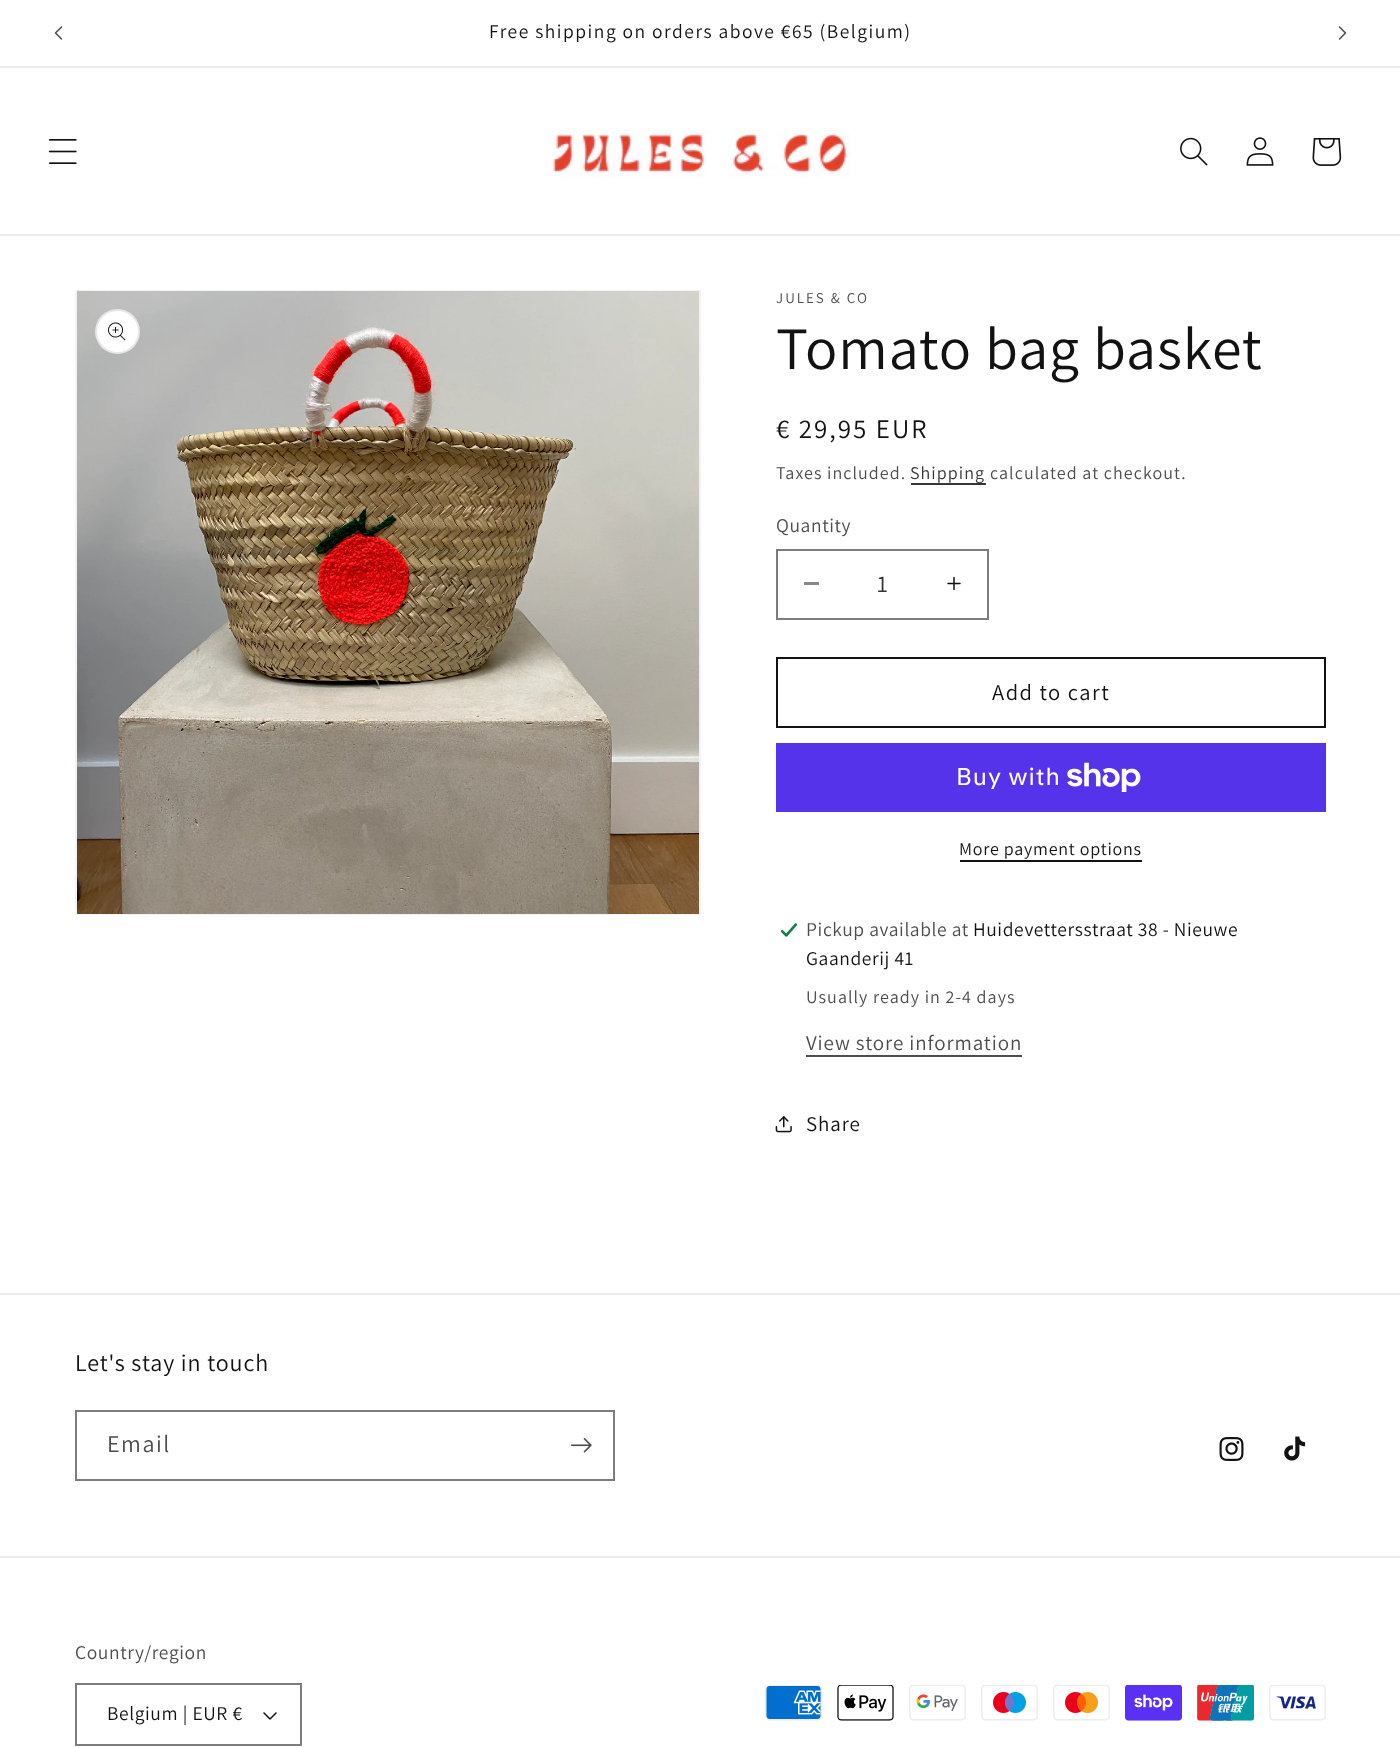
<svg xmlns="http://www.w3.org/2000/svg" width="1400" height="1748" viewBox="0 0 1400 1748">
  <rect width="100%" height="100%" fill="rgb(255,255,255)"/>
  <rect x="0" y="66" width="1400" height="2" fill="rgb(236,236,236)"/>
  <image x="54" y="26" width="9" height="14" href="pic1.png"/>
  <text x="489" y="38" font-family="Assistant" font-size="19.5" letter-spacing="1.5" fill="rgb(18,18,18)">Free shipping on orders above €65 (Belgium)</text>
  <image x="1338" y="26" width="9" height="14" href="pic2.png"/>
  <rect x="0" y="234" width="1400" height="2" fill="rgb(236,236,236)"/>
  <image x="48" y="139" width="29" height="25" href="pic3.png"/>
  <image x="550" y="130" width="301" height="49" href="pic4.png"/>
  <image x="1180" y="137" width="28" height="29" href="pic5.png"/>
  <image x="1246" y="137" width="28" height="29" href="pic6.png"/>
  <image x="1312" y="138" width="30" height="28" href="pic7.png"/>
  <rect x="76" y="291" width="624" height="623" fill="none" stroke="rgb(243,243,243)" stroke-width="2"/>
  <image x="77" y="291" width="622" height="623" href="pic8.png"/>
  <circle cx="117.5" cy="331.5" r="22.5" fill="rgb(255,255,255)"/>
  <circle cx="117.5" cy="331.5" r="21.5" fill="none" stroke="rgba(18,18,18,0.1)" stroke-width="2"/>
  <image x="108" y="322" width="18" height="19" href="pic9.png"/>
  <text x="776" y="303" font-family="Assistant" font-size="15" letter-spacing="2" fill="rgb(77,77,77)">JULES &amp; CO</text>
  <text x="776" y="369" font-family="Assistant" font-size="60" letter-spacing="0.9" fill="rgb(18,18,18)">Tomato bag basket</text>
  <text x="776" y="438" font-family="Assistant" font-size="27" letter-spacing="2" fill="rgb(18,18,18)">€ 29,95 EUR</text>
  <text x="776" y="479" font-family="Assistant" font-size="18" letter-spacing="1.05" fill="rgb(77,77,77)">Taxes included.</text>
  <rect x="911" y="483" width="75" height="2" fill="rgb(54,54,54)"/>
  <text x="910" y="479" font-family="Assistant" font-size="18" letter-spacing="1.05" fill="rgb(53,53,53)">Shipping</text>
  <text x="990" y="479" font-family="Assistant" font-size="18" letter-spacing="1.05" fill="rgb(77,77,77)">calculated at checkout.</text>
  <text x="776" y="532" font-family="Assistant" font-size="19.5" letter-spacing="0.6" fill="rgb(77,77,77)">Quantity</text>
  <rect x="804" y="582" width="15" height="3" fill="rgb(137,137,137)"/>
  <image x="947" y="576" width="14" height="15" href="pic10.png"/>
  <rect x="777" y="550" width="211" height="69" fill="none" stroke="rgb(125,125,125)" stroke-width="2"/>
  <text x="877" y="592" font-family="Assistant" font-size="24" fill="rgb(53,53,53)">1</text>
  <rect x="777" y="658" width="548" height="69" fill="none" stroke="rgb(18,18,18)" stroke-width="2"/>
  <text x="992" y="700" font-family="Assistant" font-size="22.5" letter-spacing="1.5" fill="rgb(18,18,18)">Add to cart</text>
  <rect x="776" y="743" width="550" height="69" fill="rgb(84,51,235)"/>
  <text x="956" y="785" font-family="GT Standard" font-size="24" letter-spacing="0.9" fill="rgb(255,255,255)">Buy with</text>
  <image x="1067" y="762" width="74" height="30" href="pic11.png"/>
  <text x="959" y="855" font-family="Assistant" font-size="18" letter-spacing="0.75" fill="rgb(18,18,18)">More payment options</text>
  <rect x="960" y="860" width="182" height="2" fill="rgb(18,18,18)"/>
  <image x="780" y="923" width="18" height="14" href="pic12.png"/>
  <text x="806" y="936" font-family="Assistant" font-size="19.5" letter-spacing="0.6" fill="rgb(77,77,77)">Pickup available at</text>
  <g font-family="Assistant" font-size="19.5" letter-spacing="0.6" fill="rgb(18,18,18)">
    <text x="973" y="936">Huidevettersstraat 38 - Nieuwe</text>
    <text x="806" y="965">Gaanderij 41</text>
  </g>
  <text x="806" y="1003" font-family="Assistant" font-size="18" letter-spacing="1.05" fill="rgb(77,77,77)">Usually ready in 2-4 days</text>
  <text x="806" y="1050" font-family="Assistant" font-size="21" letter-spacing="0.9" fill="rgb(77,77,77)">View store information</text>
  <rect x="806" y="1055" width="216" height="2" fill="rgb(77,77,77)"/>
  <image x="775" y="1116" width="17" height="17" href="pic13.png"/>
  <text x="806" y="1131" font-family="Assistant" font-size="21" letter-spacing="0.9" fill="rgb(18,18,18)">Share</text>
  <rect x="0" y="1293" width="1400" height="2" fill="rgb(236,236,236)"/>
  <text x="75" y="1371" font-family="Assistant" font-size="24" letter-spacing="0.9" fill="rgb(18,18,18)">Let's stay in touch</text>
  <rect x="76" y="1411" width="538" height="69" fill="none" stroke="rgb(125,125,125)" stroke-width="2"/>
  <text x="107" y="1452" font-family="Assistant" font-size="24" letter-spacing="1.5" fill="rgb(77,77,77)">Email</text>
  <image x="570" y="1438" width="22" height="15" href="pic14.png"/>
  <image x="1219" y="1437" width="25" height="24" href="pic15.png"/>
  <image x="1284" y="1436" width="22" height="25" href="pic16.png"/>
  <rect x="0" y="1556" width="1400" height="2" fill="rgb(236,236,236)"/>
  <text x="75" y="1659" font-family="Assistant" font-size="19.5" letter-spacing="0.6" fill="rgb(77,77,77)">Country/region</text>
  <image x="263" y="1712" width="14" height="8" href="pic17.png"/>
  <rect x="76" y="1684" width="225" height="61" fill="none" stroke="rgb(125,125,125)" stroke-width="2"/>
  <text x="107" y="1720" font-family="Assistant" font-size="19.5" letter-spacing="0.6" fill="rgb(18,18,18)">Belgium | EUR €</text>
  <image x="765" y="1685" width="57" height="36" href="pic18.png"/>
  <image x="837" y="1685" width="57" height="36" href="pic19.png"/>
  <image x="909" y="1685" width="57" height="36" href="pic20.png"/>
  <image x="981" y="1685" width="57" height="36" href="pic21.png"/>
  <image x="1053" y="1685" width="57" height="36" href="pic22.png"/>
  <image x="1125" y="1685" width="57" height="36" href="pic23.png"/>
  <image x="1197" y="1685" width="57" height="36" href="pic24.png"/>
  <image x="1269" y="1685" width="57" height="36" href="pic25.png"/>
</svg>
